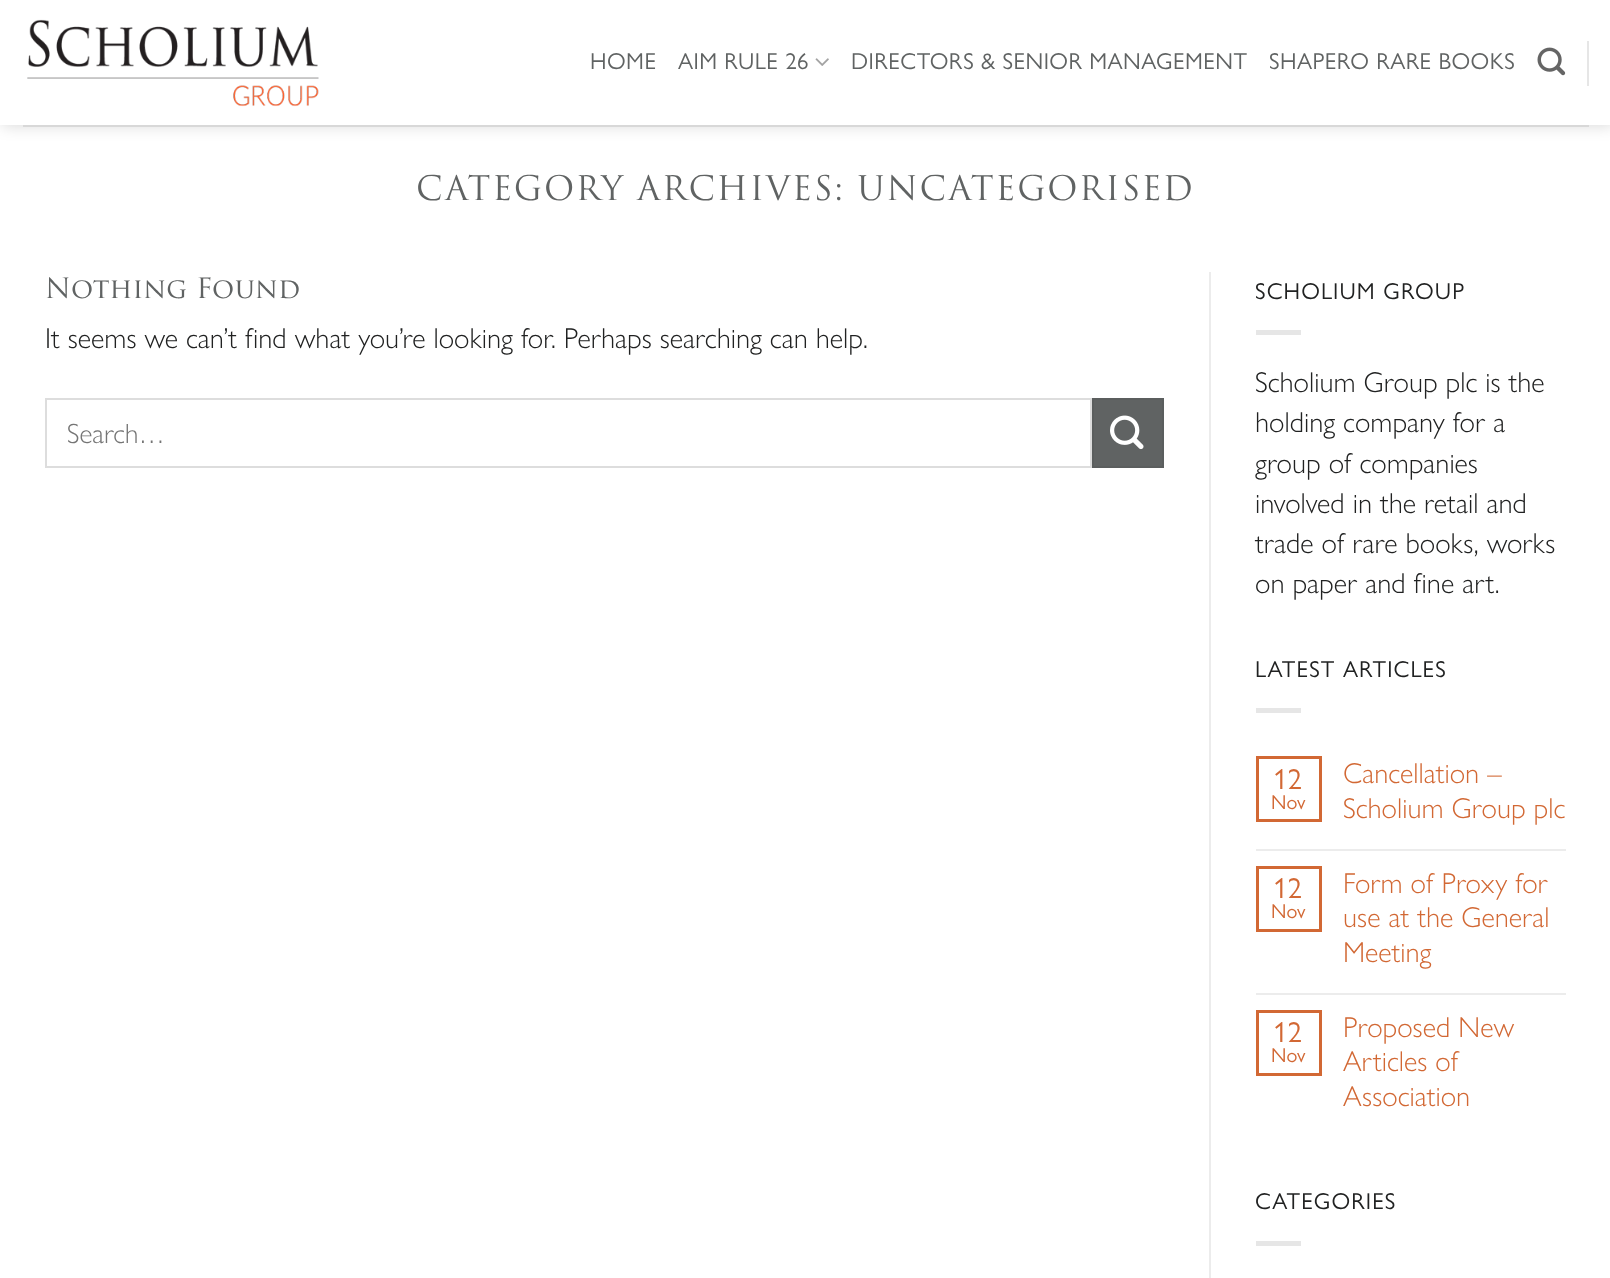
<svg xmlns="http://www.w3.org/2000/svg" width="1610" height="1278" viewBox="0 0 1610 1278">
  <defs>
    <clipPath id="clip1"><path d="M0 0H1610V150H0ZM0 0H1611V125H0Z" clip-rule="evenodd"/></clipPath>
  </defs>
  <rect width="100%" height="100%" fill="rgb(255,255,255)"/>
  <g clip-path="url(#clip1)">
    <rect x="2" y="2" width="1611" height="124" fill="rgba(0,0,0,0.15)" filter="blur(7.5px)"/>
  </g>
  <image x="27" y="19" width="292" height="88" href="pic1.png"/>
  <g font-family="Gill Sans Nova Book" font-size="23" letter-spacing="0.45" fill="rgb(96,99,99)">
    <text x="590" y="69">HOME</text>
    <text x="678" y="69">AIM RULE 26</text>
  </g>
  <image x="815" y="58" width="14" height="8" href="pic2.png"/>
  <g font-family="Gill Sans Nova Book" font-size="23" letter-spacing="0.45" fill="rgb(96,99,99)">
    <text x="851" y="69">DIRECTORS &amp; SENIOR MANAGEMENT</text>
    <text x="1269" y="69">SHAPERO RARE BOOKS</text>
  </g>
  <image x="1537" y="47" width="29" height="29" href="pic3.png"/>
  <rect x="1587" y="41" width="2" height="45" fill="rgb(230,230,230)"/>
  <rect x="23" y="125" width="1566" height="2" fill="rgb(216,216,216)"/>
  <rect x="0" y="124" width="1610" height="1" fill="rgba(255,255,255,0.9)"/>
  <text x="416" y="200" font-family="'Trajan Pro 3'" font-size="33.1" letter-spacing="1.65" fill="rgb(96,99,99)">CATEGORY ARCHIVES: UNCATEGORISED</text>
  <text x="45" y="298" font-family="'Trajan Pro 3'" font-size="27.4" fill="rgb(96,99,99)">Nothing Found</text>
  <text x="45" y="348" font-family="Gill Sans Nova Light" font-size="28.8" font-weight="300" fill="rgb(33,34,34)">It seems we can’t find what you’re looking for. Perhaps searching can help.</text>
  <rect x="46" y="399" width="1045" height="68" fill="none" stroke="rgb(221,221,221)" stroke-width="2"/>
  <text x="67" y="443" font-family="Gill Sans Nova Light" font-size="28" font-weight="300" fill="rgb(117,117,117)">Search…</text>
  <rect x="1093" y="399" width="70" height="68" fill="rgb(96,99,99)" stroke="rgb(91,94,94)" stroke-width="2"/>
  <image x="1110" y="415" width="34" height="35" href="pic4.png"/>
  <rect x="1209" y="272" width="2" height="1006" fill="rgb(236,236,236)"/>
  <text x="1255" y="299" font-family="Gill Sans Nova Book" font-size="23" letter-spacing="1.1" fill="rgb(33,34,34)">SCHOLIUM GROUP</text>
  <rect x="1256" y="330" width="45" height="5" fill="rgb(230,230,230)"/>
  <g font-family="Gill Sans Nova Light" font-size="28.8" font-weight="300" fill="rgb(33,34,34)">
    <text>
      <tspan x="1255" y="392">Scholium Group plc is the</tspan>
      <tspan x="1255" y="432">holding company for a</tspan>
      <tspan x="1255" y="473">group of companies</tspan>
      <tspan x="1255" y="513">involved in the retail and</tspan>
      <tspan x="1255" y="553">trade of rare books, works</tspan>
      <tspan x="1255" y="593">on paper and fine art.</tspan>
    </text>
  </g>
  <text x="1255" y="677" font-family="Gill Sans Nova Book" font-size="23" letter-spacing="1.1" fill="rgb(33,34,34)">LATEST ARTICLES</text>
  <rect x="1256" y="708" width="45" height="5" fill="rgb(230,230,230)"/>
  <rect x="1257.5" y="757.5" width="63" height="63" fill="none" stroke="rgb(210,104,52)" stroke-width="3"/>
  <text x="1273" y="789" font-family="Gill Sans Nova Book" font-size="28.8" fill="rgb(210,104,52)">12</text>
  <text x="1271" y="809" font-family="Gill Sans Nova Book" font-size="20" fill="rgb(210,104,52)">Nov</text>
  <g font-family="Gill Sans Nova Light" font-size="28.8" font-weight="300" fill="rgb(210,104,52)">
    <text>
      <tspan x="1343" y="783">Cancellation –</tspan>
      <tspan x="1343" y="818">Scholium Group plc</tspan>
    </text>
  </g>
  <rect x="1256" y="849" width="310" height="2" fill="rgb(236,236,236)"/>
  <rect x="1257.5" y="867.5" width="63" height="63" fill="none" stroke="rgb(210,104,52)" stroke-width="3"/>
  <text x="1273" y="898" font-family="Gill Sans Nova Book" font-size="28.8" fill="rgb(210,104,52)">12</text>
  <text x="1271" y="918" font-family="Gill Sans Nova Book" font-size="20" fill="rgb(210,104,52)">Nov</text>
  <g font-family="Gill Sans Nova Light" font-size="28.8" font-weight="300" fill="rgb(210,104,52)">
    <text>
      <tspan x="1343" y="893">Form of Proxy for</tspan>
      <tspan x="1343" y="927">use at the General</tspan>
      <tspan x="1343" y="962">Meeting</tspan>
    </text>
  </g>
  <rect x="1256" y="993" width="310" height="2" fill="rgb(236,236,236)"/>
  <rect x="1257.5" y="1011.5" width="63" height="63" fill="none" stroke="rgb(210,104,52)" stroke-width="3"/>
  <text x="1273" y="1042" font-family="Gill Sans Nova Book" font-size="28.8" fill="rgb(210,104,52)">12</text>
  <text x="1271" y="1062" font-family="Gill Sans Nova Book" font-size="20" fill="rgb(210,104,52)">Nov</text>
  <g font-family="Gill Sans Nova Light" font-size="28.8" font-weight="300" fill="rgb(210,104,52)">
    <text>
      <tspan x="1343" y="1037">Proposed New</tspan>
      <tspan x="1343" y="1071">Articles of</tspan>
      <tspan x="1343" y="1106">Association</tspan>
    </text>
  </g>
  <text x="1255" y="1209" font-family="Gill Sans Nova Book" font-size="23" letter-spacing="1.1" fill="rgb(33,34,34)">CATEGORIES</text>
  <rect x="1256" y="1241" width="45" height="5" fill="rgb(230,230,230)"/>
</svg>
